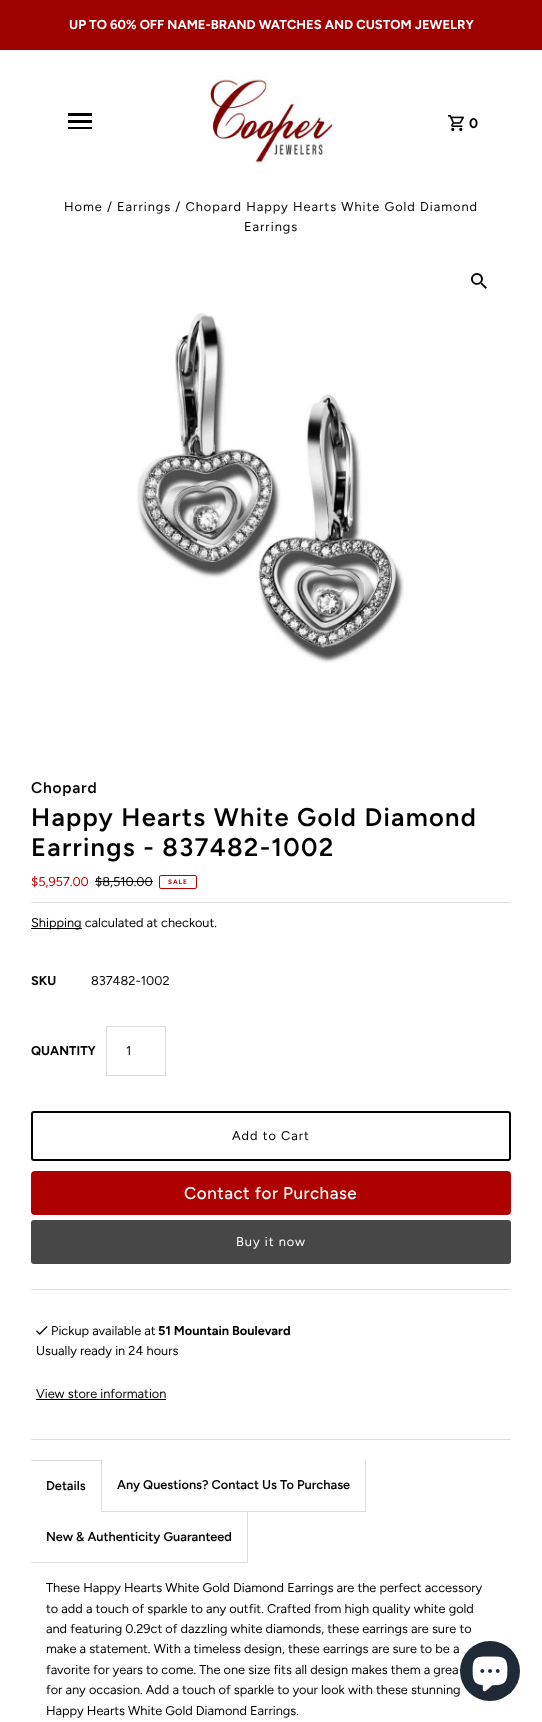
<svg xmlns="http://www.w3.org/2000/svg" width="542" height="1722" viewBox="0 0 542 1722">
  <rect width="100%" height="100%" fill="rgb(255,255,255)"/>
  <rect x="0" y="0" width="542" height="50" fill="rgb(159,0,0)"/>
  <text x="69" y="29" font-family="Figtree" font-size="13" font-weight="bold" fill="rgb(255,255,255)">UP TO 60% OFF NAME-BRAND WATCHES AND CUSTOM JEWELRY</text>
  <rect x="68" y="127" width="24" height="2" fill="rgb(0,0,0)"/>
  <rect x="68" y="120" width="24" height="3" fill="rgb(0,0,0)"/>
  <rect x="68" y="113" width="24" height="3" fill="rgb(0,0,0)"/>
  <image x="208" y="75" width="126" height="90" href="pic1.png"/>
  <image x="448" y="115" width="16" height="16" href="pic2.png"/>
  <text x="469" y="128" font-family="Figtree" font-size="14" font-weight="bold" letter-spacing="1" fill="rgb(0,0,0)">0</text>
  <g font-family="Figtree" font-size="12.75" letter-spacing="1" fill="rgb(0,0,0)">
    <text x="64" y="211">Home / Earrings / Chopard Happy Hearts White Gold Diamond</text>
    <text x="244" y="231">Earrings</text>
  </g>
  <image x="471" y="273" width="16" height="16" href="pic3.png"/>
  <image x="137" y="312" width="268" height="351" href="pic4.png"/>
  <text x="31" y="793" font-family="Figtree" font-size="15.5" font-weight="600" letter-spacing="0.75" fill="rgb(0,0,0)">Chopard</text>
  <g font-family="Figtree" font-size="25.5" font-weight="600" letter-spacing="1.25" fill="rgb(0,0,0)">
    <text>
      <tspan x="31" y="826">Happy Hearts White Gold Diamond</tspan>
      <tspan x="31" y="856">Earrings - 837482-1002</tspan>
    </text>
  </g>
  <rect x="31" y="902" width="480" height="1" fill="rgb(221,221,221)"/>
  <text x="31" y="886" font-family="Figtree" font-size="12.75" fill="rgb(188,0,0)">$5,957.00</text>
  <text x="95" y="886" font-family="Figtree" font-size="12.75" fill="rgb(0,0,0)">$8,510.00</text>
  <rect x="95" y="881" width="58" height="1" fill="rgb(0,0,0)"/>
  <rect x="159.5" y="875.5" width="37" height="13" rx="1.5" fill="none" stroke="rgb(188,0,0)"/>
  <text x="168" y="884" font-family="Figtree" font-size="6.5" font-weight="bold" letter-spacing="1" fill="rgb(188,0,0)">SALE</text>
  <rect x="31" y="928" width="51" height="1" fill="rgb(0,0,0)"/>
  <text x="31" y="927" font-family="Figtree" font-size="12.75" fill="rgb(0,0,0)">Shipping calculated at checkout.</text>
  <rect x="31" y="1289" width="480" height="1" fill="rgb(221,221,221)"/>
  <text x="31" y="985" font-family="Figtree" font-size="12.75" font-weight="bold" fill="rgb(0,0,0)">SKU</text>
  <text x="91" y="985" font-family="Figtree" font-size="12.75" fill="rgb(0,0,0)">837482-1002</text>
  <text x="31" y="1055" font-family="Figtree" font-size="12.75" font-weight="bold" fill="rgb(0,0,0)">QUANTITY</text>
  <rect x="106.5" y="1026.5" width="59" height="49" fill="none" stroke="rgb(221,221,221)"/>
  <text x="126" y="1055" font-family="Figtree" font-size="12.75" fill="rgb(0,0,0)">1</text>
  <rect x="32" y="1112" width="478" height="48" rx="2" fill="none" stroke="rgb(0,0,0)" stroke-width="2"/>
  <text x="232" y="1140" font-family="Figtree" font-size="12.75" letter-spacing="1" fill="rgb(0,0,0)">Add to Cart</text>
  <rect x="31" y="1171" width="480" height="44" rx="4" fill="rgb(175,0,0)"/>
  <text x="184" y="1199" font-family="Figtree" font-size="17" font-weight="500" letter-spacing="0.5" fill="rgb(255,255,255)">Contact for Purchase</text>
  <rect x="31" y="1220" width="480" height="44" rx="3" fill="rgb(71,71,71)"/>
  <text x="236" y="1246" font-family="Figtree" font-size="12.75" letter-spacing="1" fill="rgb(255,255,255)">Buy it now</text>
  <rect x="31" y="1439" width="480" height="1" fill="rgb(221,221,221)"/>
  <image x="36" y="1326" width="12" height="9" href="pic5.png"/>
  <text x="51" y="1335" font-family="Figtree" font-size="12.75" fill="rgb(0,0,0)">Pickup available at</text>
  <text x="158" y="1335" font-family="Figtree" font-size="12.75" font-weight="bold" fill="rgb(0,0,0)">51 Mountain Boulevard</text>
  <g font-family="Figtree" font-size="12.75" fill="rgb(0,0,0)">
    <text x="36" y="1355">Usually ready in 24 hours</text>
    <text x="36" y="1398">View store information</text>
  </g>
  <rect x="36" y="1399" width="130" height="1" fill="rgb(0,0,0)"/>
  <rect x="101" y="1460" width="1" height="52" fill="rgb(221,221,221)"/>
  <rect x="31" y="1460" width="70" height="1" fill="rgb(221,221,221)"/>
  <text x="46" y="1490" font-family="Figtree" font-size="12.75" font-weight="600" fill="rgb(0,0,0)">Details</text>
  <rect x="365" y="1460" width="1" height="52" fill="rgb(221,221,221)"/>
  <rect x="102" y="1511" width="263" height="1" fill="rgb(221,221,221)"/>
  <text x="117" y="1489" font-family="Figtree" font-size="12.75" font-weight="600" fill="rgb(0,0,0)">Any Questions? Contact Us To Purchase</text>
  <rect x="247" y="1512" width="1" height="51" fill="rgb(221,221,221)"/>
  <rect x="31" y="1562" width="216" height="1" fill="rgb(221,221,221)"/>
  <text x="46" y="1541" font-family="Figtree" font-size="12.75" font-weight="600" fill="rgb(0,0,0)">New &amp; Authenticity Guaranteed</text>
  <g font-family="Figtree" font-size="12.75" fill="rgb(0,0,0)">
    <text>
      <tspan x="46" y="1592">These Happy Hearts White Gold Diamond Earrings are the perfect accessory</tspan>
      <tspan x="46" y="1613">to add a touch of sparkle to any outfit. Crafted from high quality white gold</tspan>
      <tspan x="46" y="1633">and featuring 0.29ct of dazzling white diamonds, these earrings are sure to</tspan>
      <tspan x="46" y="1653">make a statement. With a timeless design, these earrings are sure to be a</tspan>
      <tspan x="46" y="1674">favorite for years to come. The one size fits all design makes them a grea</tspan>
      <tspan x="46" y="1694">for any occasion. Add a touch of sparkle to your look with these stunning</tspan>
      <tspan x="46" y="1715">Happy Hearts White Gold Diamond Earrings.</tspan>
    </text>
  </g>
  <circle cx="490" cy="1671" r="30" fill="rgb(32,42,54)"/>
  <image x="472" y="1656" width="36" height="36" href="pic6.png"/>
</svg>
